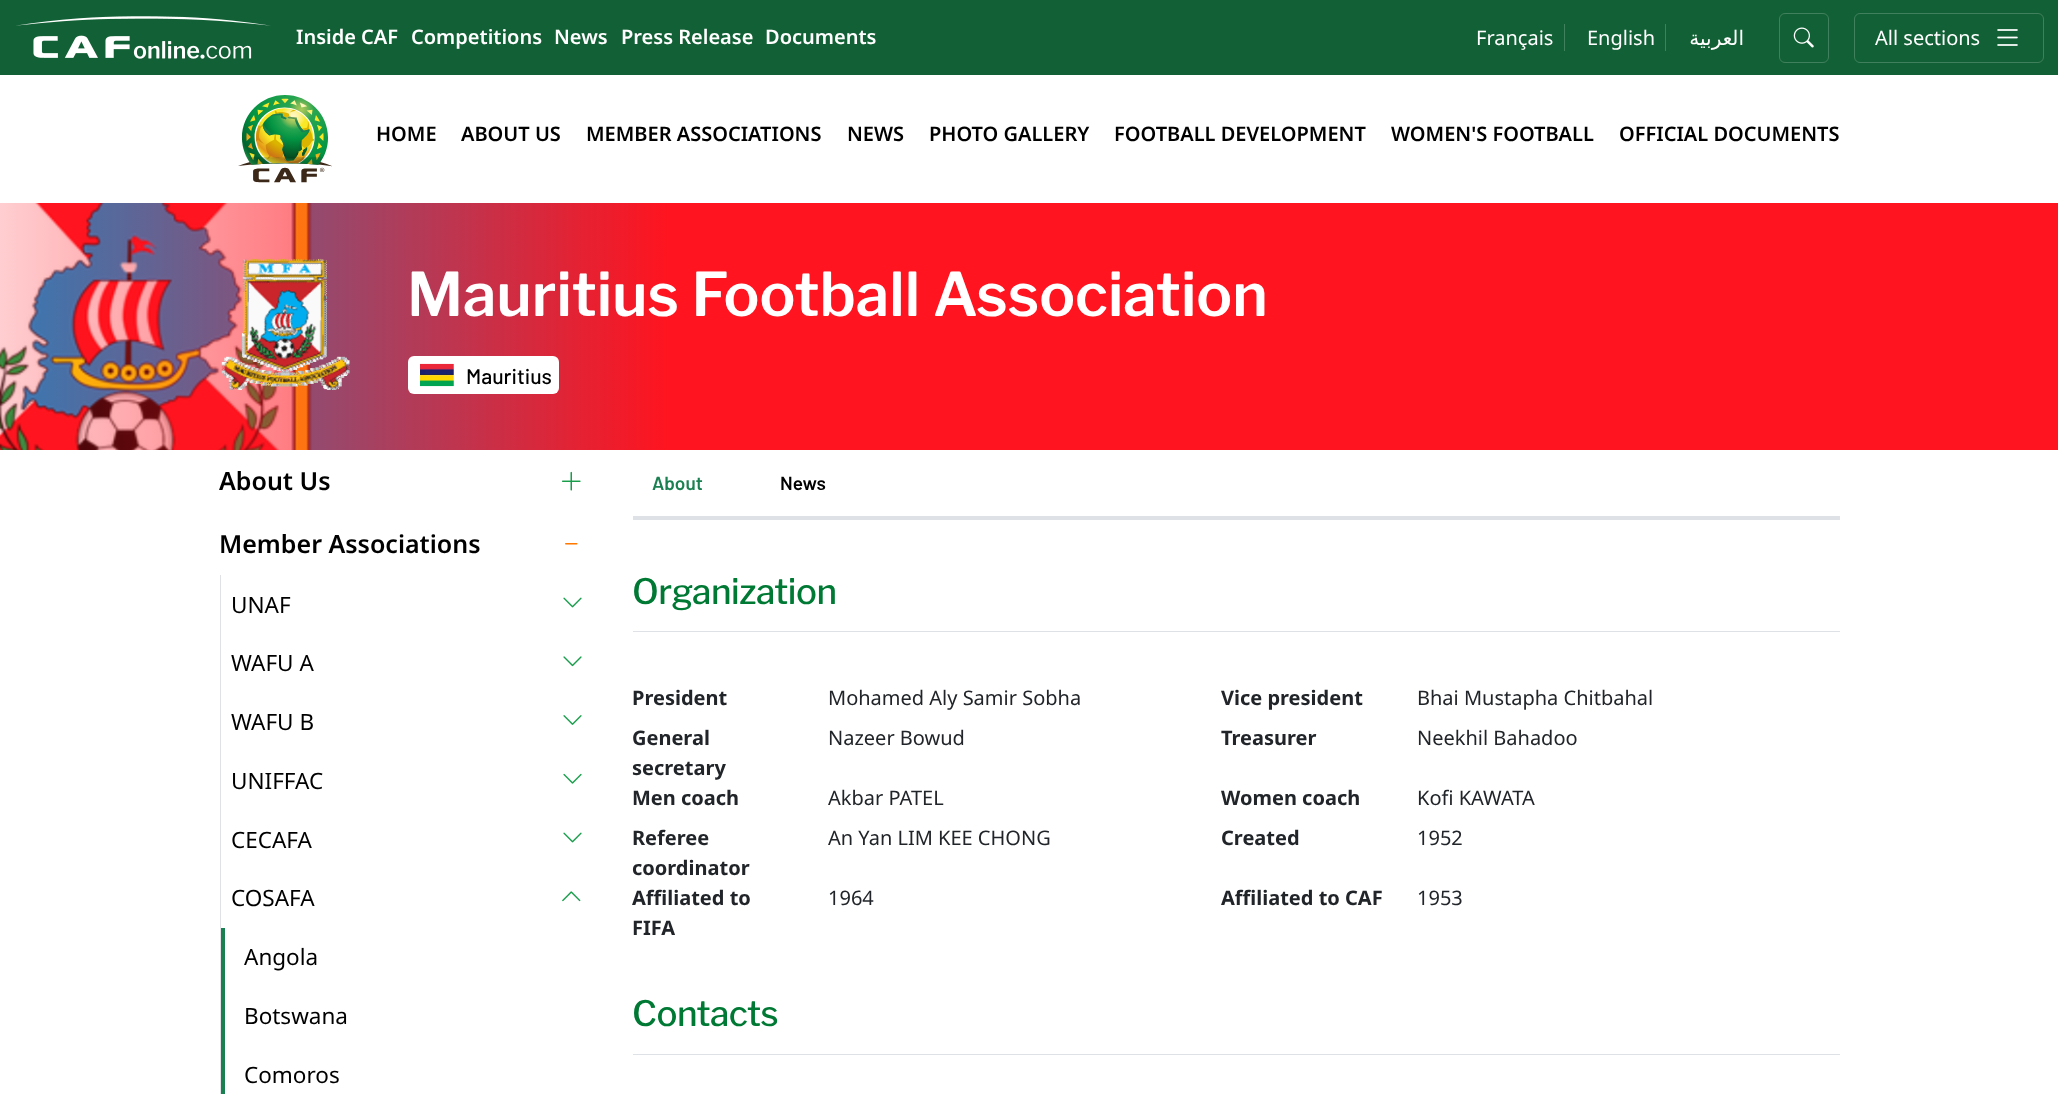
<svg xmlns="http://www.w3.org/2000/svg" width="2058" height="1094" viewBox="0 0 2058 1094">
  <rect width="100%" height="100%" fill="rgb(255,255,255)"/>
  <rect x="0" y="0" width="2058" height="75" fill="rgb(18,96,53)"/>
  <image x="16" y="16" width="255" height="43" href="pic1.png"/>
  <g font-family="Noto Sans" font-size="20" font-weight="600" fill="rgb(255,255,255)">
    <text x="296" y="44">Inside CAF</text>
    <text x="411" y="44">Competitions</text>
    <text x="554" y="44">News</text>
    <text x="621" y="44">Press Release</text>
    <text x="765" y="44">Documents</text>
  </g>
  <rect x="1564" y="24" width="1" height="27" fill="rgb(65,128,93)"/>
  <text x="1476" y="45" font-family="Noto Sans" font-size="20" fill="rgb(255,255,255)">Français</text>
  <rect x="1665" y="24" width="1" height="27" fill="rgb(65,128,93)"/>
  <text x="1587" y="45" font-family="Noto Sans" font-size="20" fill="rgb(255,255,255)">English</text>
  <text x="1744" y="45" font-family="DejaVu Sans" font-size="20" direction="rtl" fill="rgb(255,255,255)">العربية</text>
  <rect x="1779.5" y="13.5" width="49" height="49" rx="5.5" fill="none" stroke="rgb(65,128,93)"/>
  <image x="1793" y="27" width="21" height="21" href="pic2.png"/>
  <rect x="1854.5" y="13.5" width="189" height="49" rx="5.5" fill="none" stroke="rgb(65,128,93)"/>
  <text x="1875" y="45" font-family="Noto Sans" font-size="20" fill="rgb(255,255,255)">All sections</text>
  <image x="1997" y="29" width="21" height="17" href="pic3.png"/>
  <image x="238" y="95" width="94" height="88" href="pic4.png"/>
  <g font-family="Noto Sans" font-size="20" font-weight="600" fill="rgb(0,0,0)">
    <text x="376" y="141">HOME</text>
    <text x="461" y="141">ABOUT US</text>
    <text x="586" y="141">MEMBER ASSOCIATIONS</text>
    <text x="847" y="141">NEWS</text>
    <text x="929" y="141">PHOTO GALLERY</text>
    <text x="1114" y="141">FOOTBALL DEVELOPMENT</text>
    <text x="1391" y="141">WOMEN'S FOOTBALL</text>
    <text x="1619" y="141">OFFICIAL DOCUMENTS</text>
  </g>
  <image x="0" y="203" width="2058" height="247" href="pic5.png"/>
  <image x="221" y="258" width="129" height="132" href="pic6.png"/>
  <text x="407" y="316" font-family="Libre Franklin" font-size="60" font-weight="600" fill="rgb(255,255,255)">Mauritius Football Association</text>
  <rect x="408" y="356" width="151" height="38" rx="6" fill="rgb(255,255,255)"/>
  <image x="420" y="363" width="34" height="24" href="pic7.png"/>
  <text x="466" y="384" font-family="Barlow" font-size="21.25" font-weight="500" fill="rgb(0,0,0)">Mauritius</text>
  <text x="219" y="490" font-family="Noto Sans" font-size="25" font-weight="600" fill="rgb(0,0,0)">About Us</text>
  <image x="562" y="471" width="19" height="20" href="pic8.png"/>
  <text x="219" y="553" font-family="Noto Sans" font-size="25" font-weight="600" fill="rgb(0,0,0)">Member Associations</text>
  <image x="565" y="543" width="13" height="2" href="pic9.png"/>
  <rect x="220" y="575" width="1" height="519" fill="rgb(222,226,230)"/>
  <text x="231" y="613" font-family="Noto Sans" font-size="22.5" fill="rgb(0,0,0)">UNAF</text>
  <image x="563" y="597" width="19" height="11" href="pic10.png"/>
  <text x="231" y="671" font-family="Noto Sans" font-size="22.5" fill="rgb(0,0,0)">WAFU A</text>
  <image x="563" y="656" width="19" height="11" href="pic11.png"/>
  <text x="231" y="730" font-family="Noto Sans" font-size="22.5" fill="rgb(0,0,0)">WAFU B</text>
  <image x="563" y="715" width="19" height="10" href="pic12.png"/>
  <text x="231" y="789" font-family="Noto Sans" font-size="22.5" fill="rgb(0,0,0)">UNIFFAC</text>
  <image x="563" y="773" width="19" height="11" href="pic13.png"/>
  <text x="231" y="848" font-family="Noto Sans" font-size="22.5" fill="rgb(0,0,0)">CECAFA</text>
  <image x="563" y="832" width="19" height="11" href="pic10.png"/>
  <text x="231" y="906" font-family="Noto Sans" font-size="22.5" fill="rgb(0,0,0)">COSAFA</text>
  <image x="562" y="891" width="19" height="11" href="pic14.png"/>
  <rect x="221" y="928" width="4" height="166" fill="rgb(27,128,81)"/>
  <g font-family="Noto Sans" font-size="22.5" fill="rgb(0,0,0)">
    <text x="244" y="965">Angola</text>
    <text x="244" y="1024">Botswana</text>
    <text x="244" y="1083">Comoros</text>
  </g>
  <rect x="633" y="516" width="1207" height="4" fill="rgb(222,226,230)"/>
  <text x="652" y="490" font-family="Barlow" font-size="19" font-weight="600" fill="rgb(27,128,81)">About</text>
  <text x="780" y="490" font-family="Barlow" font-size="19" font-weight="600" fill="rgb(0,0,0)">News</text>
  <rect x="633" y="631" width="1207" height="1" fill="rgb(222,226,230)"/>
  <text x="632" y="604" font-family="Libre Franklin" font-size="35" font-weight="500" letter-spacing="-0.5" fill="rgb(0,121,52)">Organization</text>
  <text x="632" y="705" font-family="Noto Sans" font-size="20" font-weight="bold" fill="rgb(33,37,41)">President</text>
  <text x="828" y="705" font-family="Noto Sans" font-size="20" fill="rgb(33,37,41)">Mohamed Aly Samir Sobha</text>
  <text x="1221" y="705" font-family="Noto Sans" font-size="20" font-weight="bold" fill="rgb(33,37,41)">Vice president</text>
  <text x="1417" y="705" font-family="Noto Sans" font-size="20" fill="rgb(33,37,41)">Bhai Mustapha Chitbahal</text>
  <g font-family="Noto Sans" font-size="20" font-weight="bold" fill="rgb(33,37,41)">
    <text>
      <tspan x="632" y="745">General</tspan>
      <tspan x="632" y="775">secretary</tspan>
    </text>
  </g>
  <text x="828" y="745" font-family="Noto Sans" font-size="20" fill="rgb(33,37,41)">Nazeer Bowud</text>
  <text x="1221" y="745" font-family="Noto Sans" font-size="20" font-weight="bold" fill="rgb(33,37,41)">Treasurer</text>
  <text x="1417" y="745" font-family="Noto Sans" font-size="20" fill="rgb(33,37,41)">Neekhil Bahadoo</text>
  <text x="632" y="805" font-family="Noto Sans" font-size="20" font-weight="bold" fill="rgb(33,37,41)">Men coach</text>
  <text x="828" y="805" font-family="Noto Sans" font-size="20" fill="rgb(33,37,41)">Akbar PATEL</text>
  <text x="1221" y="805" font-family="Noto Sans" font-size="20" font-weight="bold" fill="rgb(33,37,41)">Women coach</text>
  <text x="1417" y="805" font-family="Noto Sans" font-size="20" fill="rgb(33,37,41)">Kofi KAWATA</text>
  <g font-family="Noto Sans" font-size="20" font-weight="bold" fill="rgb(33,37,41)">
    <text>
      <tspan x="632" y="845">Referee</tspan>
      <tspan x="632" y="875">coordinator</tspan>
    </text>
  </g>
  <text x="828" y="845" font-family="Noto Sans" font-size="20" fill="rgb(33,37,41)">An Yan LIM KEE CHONG</text>
  <text x="1221" y="845" font-family="Noto Sans" font-size="20" font-weight="bold" fill="rgb(33,37,41)">Created</text>
  <text x="1417" y="845" font-family="Noto Sans" font-size="20" fill="rgb(33,37,41)">1952</text>
  <g font-family="Noto Sans" font-size="20" font-weight="bold" fill="rgb(33,37,41)">
    <text>
      <tspan x="632" y="905">Affiliated to</tspan>
      <tspan x="632" y="935">FIFA</tspan>
    </text>
  </g>
  <text x="828" y="905" font-family="Noto Sans" font-size="20" fill="rgb(33,37,41)">1964</text>
  <text x="1221" y="905" font-family="Noto Sans" font-size="20" font-weight="bold" fill="rgb(33,37,41)">Affiliated to CAF</text>
  <text x="1417" y="905" font-family="Noto Sans" font-size="20" fill="rgb(33,37,41)">1953</text>
  <rect x="633" y="1054" width="1207" height="1" fill="rgb(222,226,230)"/>
  <text x="632" y="1026" font-family="Libre Franklin" font-size="35" font-weight="500" letter-spacing="-0.5" fill="rgb(0,121,52)">Contacts</text>
</svg>
